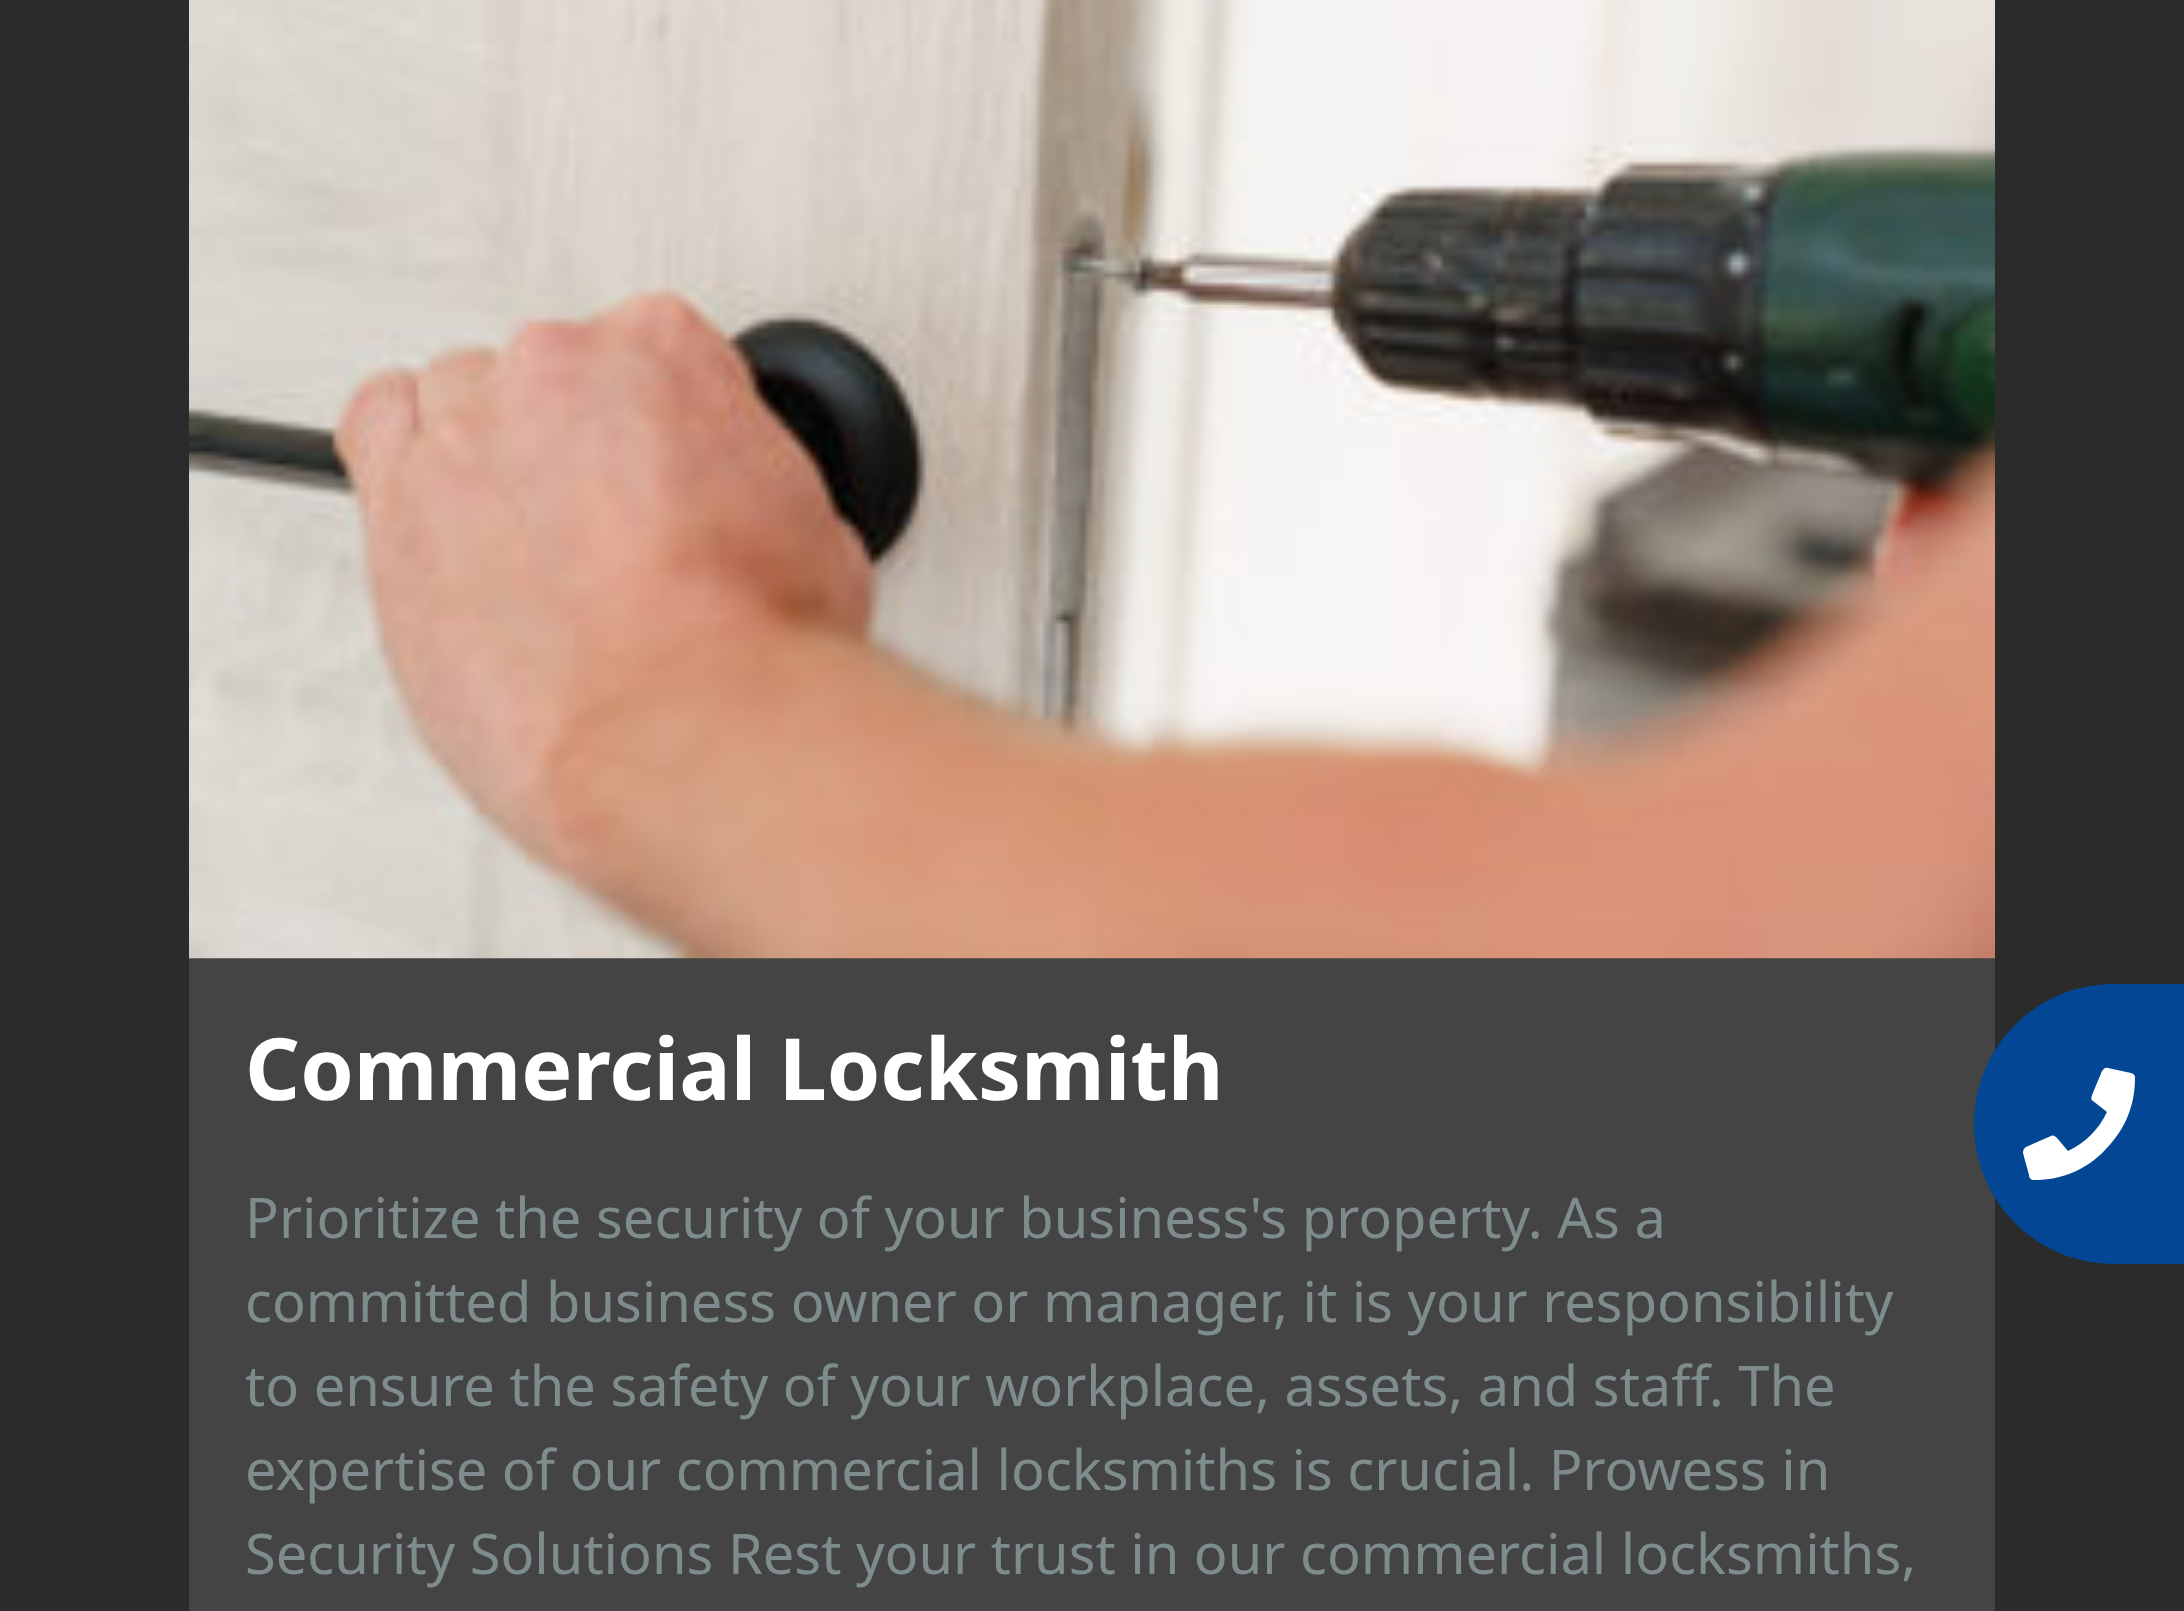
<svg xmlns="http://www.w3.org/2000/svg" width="2184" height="1611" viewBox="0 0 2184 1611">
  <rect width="100%" height="100%" fill="rgb(43,43,43)"/>
  <rect x="189" y="958" width="1806" height="653" fill="rgb(68,68,68)"/>
  <image x="189" y="0" width="1806" height="959" href="pic1.png"/>
  <text x="245" y="1100" font-family="Noto Sans" font-size="85.9" font-weight="bold" fill="rgb(255,255,255)">Commercial Locksmith</text>
  <g font-family="Noto Sans" font-size="56" fill="rgb(127,140,141)">
    <text>
      <tspan x="245" y="1238">Prioritize the security of your business's property. As a</tspan>
      <tspan x="245" y="1322">committed business owner or manager, it is your responsibility</tspan>
      <tspan x="245" y="1406">to ensure the safety of your workplace, assets, and staff. The</tspan>
      <tspan x="245" y="1490">expertise of our commercial locksmiths is crucial. Prowess in</tspan>
      <tspan x="245" y="1574">Security Solutions Rest your trust in our commercial locksmiths,</tspan>
    </text>
  </g>
  <path d="M2114 984H2184V1264H2114C2036.5 1264 1974 1201.5 1974 1124C1974 1046.5 2036.5 984 2114 984Z" fill="rgb(3,70,148)"/>
  <path d="M2131 1073C2134 1074 2135 1075 2135 1078C2135 1106 2125 1130 2105 1150C2086 1170 2062 1180 2034 1180C2031 1180 2029 1178 2029 1175L2023 1153C2023 1150 2024 1148 2026 1147L2051 1136C2053 1135 2055 1136 2057 1138L2068 1151C2085 1143 2099 1129 2107 1112L2093 1101C2091 1100 2091 1098 2092 1095L2102 1071C2104 1068 2106 1067 2108 1068Z" fill="rgb(255,255,255)"/>
</svg>
